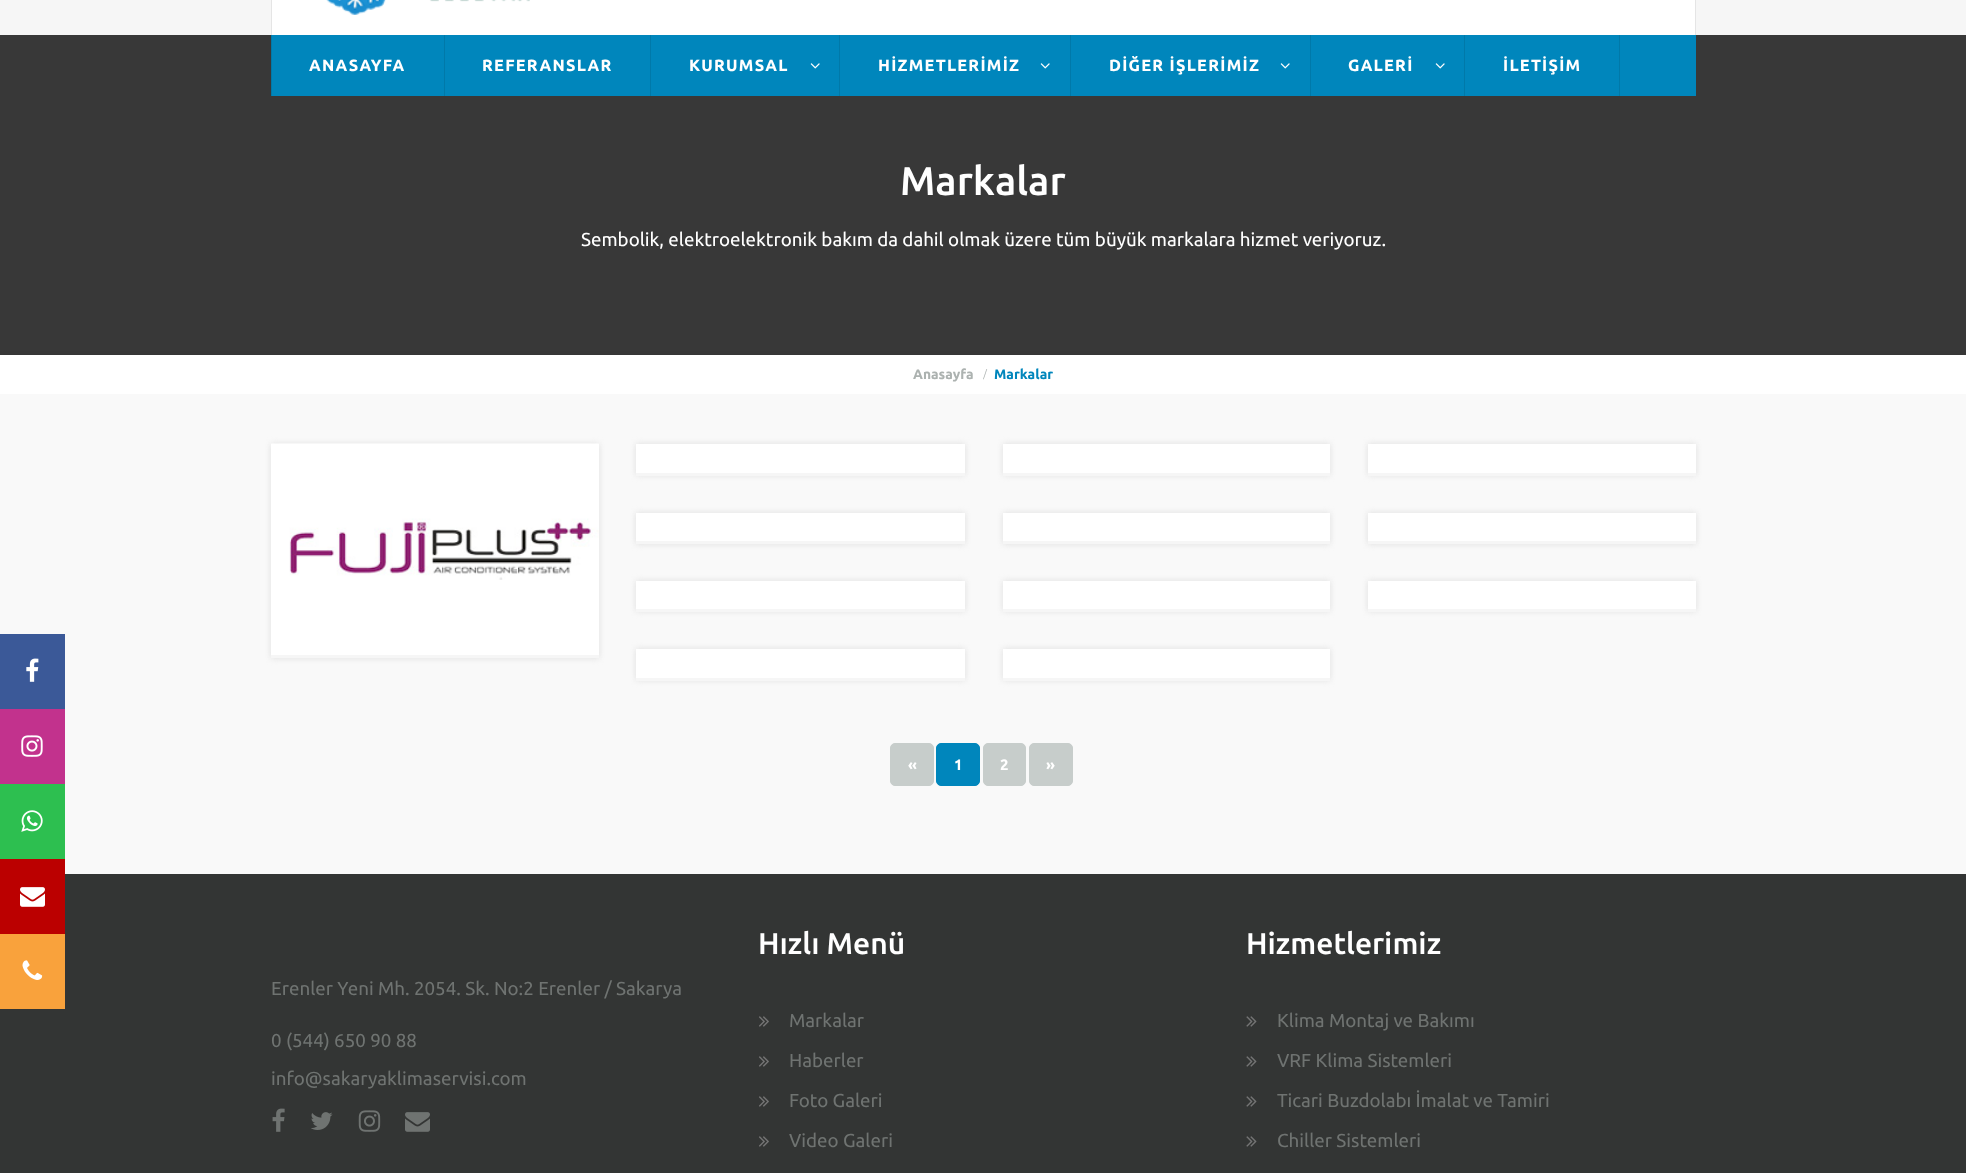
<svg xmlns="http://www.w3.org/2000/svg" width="1966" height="1173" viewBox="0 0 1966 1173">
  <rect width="100%" height="100%" fill="rgb(246,246,246)"/>
  <rect x="272" y="0" width="1423" height="35" fill="rgb(255,255,255)"/>
  <rect x="1695" y="0" width="1" height="35" fill="rgb(229,229,229)"/>
  <rect x="271" y="0" width="1" height="35" fill="rgb(229,229,229)"/>
  <image x="326" y="0" width="204" height="15" href="pic1.png"/>
  <rect x="0" y="355" width="1966" height="39" fill="rgb(222,222,222)" filter="blur(3px)"/>
  <rect x="0" y="35" width="1966" height="320" fill="rgba(20,20,20,0.6)"/>
  <rect x="0" y="35" width="1966" height="320" fill="rgba(20,20,20,0.6)"/>
  <rect x="272" y="35" width="1424" height="61" fill="rgb(0,134,188)"/>
  <rect x="444" y="35" width="1" height="61" fill="rgb(0,121,169)"/>
  <rect x="271" y="35" width="1" height="61" fill="rgb(0,121,169)"/>
  <text x="309" y="71" font-family="Ubuntu" font-size="16.25" font-weight="bold" letter-spacing="1.25" fill="rgb(255,255,255)">ANASAYFA</text>
  <rect x="650" y="35" width="1" height="61" fill="rgb(0,121,169)"/>
  <text x="482" y="71" font-family="Ubuntu" font-size="16.25" font-weight="bold" letter-spacing="1.25" fill="rgb(255,255,255)">REFERANSLAR</text>
  <rect x="839" y="35" width="1" height="61" fill="rgb(0,121,169)"/>
  <text x="689" y="71" font-family="Ubuntu" font-size="16.25" font-weight="bold" letter-spacing="1.25" fill="rgb(255,255,255)">KURUMSAL</text>
  <image x="810" y="63" width="10" height="6" href="pic2.png"/>
  <rect x="1070" y="35" width="1" height="61" fill="rgb(0,121,169)"/>
  <text x="878" y="71" font-family="Ubuntu" font-size="16.25" font-weight="bold" letter-spacing="1.25" fill="rgb(255,255,255)">HİZMETLERİMİZ</text>
  <image x="1040" y="63" width="10" height="6" href="pic2.png"/>
  <rect x="1310" y="35" width="1" height="61" fill="rgb(0,121,169)"/>
  <text x="1109" y="71" font-family="Ubuntu" font-size="16.25" font-weight="bold" letter-spacing="1.25" fill="rgb(255,255,255)">DİĞER İŞLERİMİZ</text>
  <image x="1280" y="63" width="10" height="6" href="pic2.png"/>
  <rect x="1464" y="35" width="1" height="61" fill="rgb(0,121,169)"/>
  <text x="1348" y="71" font-family="Ubuntu" font-size="16.25" font-weight="bold" letter-spacing="1.25" fill="rgb(255,255,255)">GALERİ</text>
  <image x="1435" y="63" width="10" height="6" href="pic2.png"/>
  <rect x="1619" y="35" width="1" height="61" fill="rgb(0,121,169)"/>
  <text x="1503" y="71" font-family="Ubuntu" font-size="16.25" font-weight="bold" letter-spacing="1.25" fill="rgb(255,255,255)">İLETİŞİM</text>
  <text x="900" y="195" font-family="Ubuntu" font-size="40" font-weight="500" fill="rgb(255,255,255)">Markalar</text>
  <text x="581" y="246" font-family="Ubuntu" font-size="18.75" fill="rgb(255,255,255)">Sembolik, elektroelektronik bakım da dahil olmak üzere tüm büyük markalara hizmet veriyoruz.</text>
  <rect x="0" y="355" width="1966" height="39" fill="rgb(255,255,255)"/>
  <text x="913" y="379" font-family="Ubuntu" font-size="13.75" font-weight="bold" fill="rgb(172,178,176)">Anasayfa</text>
  <text x="983" y="379" font-family="Liberation Serif" font-size="15" fill="rgb(172,178,176)">/</text>
  <text x="994" y="379" font-family="Ubuntu" font-size="13.75" font-weight="bold" fill="rgb(0,134,188)">Markalar</text>
  <rect x="0" y="394" width="1966" height="480" fill="rgb(249,249,249)"/>
  <rect x="271" y="444" width="328" height="214" fill="rgb(222,222,222)" filter="blur(3px)"/>
  <rect x="271" y="444" width="328" height="211" fill="rgb(255,255,255)"/>
  <rect x="271" y="655" width="328" height="3" fill="rgb(246,246,246)"/>
  <image x="271" y="443" width="328" height="137" href="pic3.png"/>
  <rect x="636" y="444" width="329" height="31" fill="rgb(222,222,222)" filter="blur(3px)"/>
  <rect x="636" y="444" width="329" height="29" fill="rgb(255,255,255)"/>
  <rect x="636" y="473" width="329" height="3" fill="rgb(246,246,246)"/>
  <rect x="1003" y="444" width="327" height="31" fill="rgb(222,222,222)" filter="blur(3px)"/>
  <rect x="1003" y="444" width="327" height="29" fill="rgb(255,255,255)"/>
  <rect x="1003" y="473" width="327" height="3" fill="rgb(246,246,246)"/>
  <rect x="1368" y="444" width="328" height="31" fill="rgb(222,222,222)" filter="blur(3px)"/>
  <rect x="1368" y="444" width="328" height="29" fill="rgb(255,255,255)"/>
  <rect x="1368" y="473" width="328" height="3" fill="rgb(246,246,246)"/>
  <rect x="636" y="513" width="329" height="31" fill="rgb(222,222,222)" filter="blur(3px)"/>
  <rect x="636" y="513" width="329" height="28" fill="rgb(255,255,255)"/>
  <rect x="636" y="541" width="329" height="3" fill="rgb(246,246,246)"/>
  <rect x="1003" y="513" width="327" height="31" fill="rgb(222,222,222)" filter="blur(3px)"/>
  <rect x="1003" y="513" width="327" height="28" fill="rgb(255,255,255)"/>
  <rect x="1003" y="541" width="327" height="3" fill="rgb(246,246,246)"/>
  <rect x="1368" y="513" width="328" height="31" fill="rgb(222,222,222)" filter="blur(3px)"/>
  <rect x="1368" y="513" width="328" height="28" fill="rgb(255,255,255)"/>
  <rect x="1368" y="541" width="328" height="3" fill="rgb(246,246,246)"/>
  <rect x="636" y="581" width="329" height="30" fill="rgb(222,222,222)" filter="blur(3px)"/>
  <rect x="636" y="581" width="329" height="28" fill="rgb(255,255,255)"/>
  <rect x="636" y="609" width="329" height="3" fill="rgb(246,246,246)"/>
  <rect x="1003" y="581" width="327" height="30" fill="rgb(222,222,222)" filter="blur(3px)"/>
  <rect x="1003" y="581" width="327" height="28" fill="rgb(255,255,255)"/>
  <rect x="1003" y="609" width="327" height="3" fill="rgb(246,246,246)"/>
  <rect x="1368" y="581" width="328" height="30" fill="rgb(222,222,222)" filter="blur(3px)"/>
  <rect x="1368" y="581" width="328" height="28" fill="rgb(255,255,255)"/>
  <rect x="1368" y="609" width="328" height="3" fill="rgb(246,246,246)"/>
  <rect x="636" y="649" width="329" height="31" fill="rgb(222,222,222)" filter="blur(3px)"/>
  <rect x="636" y="649" width="329" height="29" fill="rgb(255,255,255)"/>
  <rect x="636" y="678" width="329" height="3" fill="rgb(246,246,246)"/>
  <rect x="1003" y="649" width="327" height="31" fill="rgb(222,222,222)" filter="blur(3px)"/>
  <rect x="1003" y="649" width="327" height="29" fill="rgb(255,255,255)"/>
  <rect x="1003" y="678" width="327" height="3" fill="rgb(246,246,246)"/>
  <rect x="890.5" y="743.5" width="43" height="42" rx="4.5" fill="rgb(199,205,203)" stroke="rgb(199,205,203)"/>
  <text x="908" y="770" font-family="Ubuntu" font-size="15" font-weight="bold" fill="rgb(255,255,255)">«</text>
  <rect x="936.5" y="743.5" width="43" height="42" rx="4.5" fill="rgb(0,134,188)" stroke="rgb(0,134,188)"/>
  <text x="954" y="770" font-family="Ubuntu" font-size="15" font-weight="bold" fill="rgb(255,255,255)">1</text>
  <rect x="983.5" y="743.5" width="42" height="42" rx="4.5" fill="rgb(199,205,203)" stroke="rgb(199,205,203)"/>
  <text x="1000" y="770" font-family="Ubuntu" font-size="15" font-weight="bold" fill="rgb(255,255,255)">2</text>
  <rect x="1029.5" y="743.5" width="43" height="42" rx="4.5" fill="rgb(199,205,203)" stroke="rgb(199,205,203)"/>
  <text x="1046" y="770" font-family="Ubuntu" font-size="15" font-weight="bold" fill="rgb(255,255,255)">»</text>
  <rect x="0" y="634" width="65" height="75" fill="rgb(59,89,152)"/>
  <image x="26" y="658" width="13" height="24" href="pic4.png"/>
  <rect x="0" y="709" width="65" height="75" fill="rgb(194,50,141)"/>
  <image x="21" y="735" width="22" height="22" href="pic5.png"/>
  <rect x="0" y="784" width="65" height="75" fill="rgb(45,191,80)"/>
  <image x="21" y="810" width="22" height="22" href="pic6.png"/>
  <rect x="0" y="874" width="1966" height="299" fill="rgb(51,53,52)"/>
  <rect x="0" y="859" width="65" height="75" fill="rgb(187,0,0)"/>
  <image x="20" y="887" width="25" height="20" href="pic7.png"/>
  <rect x="0" y="934" width="65" height="75" fill="rgb(249,162,60)"/>
  <image x="22" y="960" width="21" height="20" href="pic8.png"/>
  <g font-family="Ubuntu" font-size="18.75" fill="rgb(111,115,113)">
    <text x="271" y="995">Erenler Yeni Mh. 2054. Sk. No:2 Erenler / Sakarya</text>
    <text x="271" y="1047">0 (544) 650 90 88</text>
    <text x="271" y="1085">info@sakaryaklimaservisi.com</text>
  </g>
  <image x="272" y="1108" width="13" height="24" href="pic9.png"/>
  <image x="311" y="1112" width="22" height="18" href="pic10.png"/>
  <image x="358" y="1110" width="23" height="22" href="pic11.png"/>
  <image x="405" y="1112" width="25" height="20" href="pic12.png"/>
  <text x="758" y="954" font-family="Ubuntu" font-size="30" font-weight="500" fill="rgb(255,255,255)">Hızlı Menü</text>
  <image x="759" y="1016" width="10" height="11" href="pic13.png"/>
  <text x="789" y="1027" font-family="Ubuntu" font-size="18.75" fill="rgb(111,115,113)">Markalar</text>
  <image x="759" y="1056" width="10" height="11" href="pic13.png"/>
  <text x="789" y="1067" font-family="Ubuntu" font-size="18.75" fill="rgb(111,115,113)">Haberler</text>
  <image x="759" y="1096" width="10" height="11" href="pic13.png"/>
  <text x="789" y="1107" font-family="Ubuntu" font-size="18.75" fill="rgb(111,115,113)">Foto Galeri</text>
  <image x="759" y="1136" width="10" height="11" href="pic13.png"/>
  <text x="789" y="1147" font-family="Ubuntu" font-size="18.75" fill="rgb(111,115,113)">Video Galeri</text>
  <text x="1246" y="954" font-family="Ubuntu" font-size="30" font-weight="500" fill="rgb(255,255,255)">Hizmetlerimiz</text>
  <image x="1246" y="1016" width="11" height="11" href="pic14.png"/>
  <text x="1277" y="1027" font-family="Ubuntu" font-size="18.75" fill="rgb(111,115,113)">Klima Montaj ve Bakımı</text>
  <image x="1246" y="1056" width="11" height="11" href="pic14.png"/>
  <text x="1277" y="1067" font-family="Ubuntu" font-size="18.75" fill="rgb(111,115,113)">VRF Klima Sistemleri</text>
  <image x="1246" y="1096" width="11" height="11" href="pic14.png"/>
  <text x="1277" y="1107" font-family="Ubuntu" font-size="18.75" fill="rgb(111,115,113)">Ticari Buzdolabı İmalat ve Tamiri</text>
  <image x="1246" y="1136" width="11" height="11" href="pic14.png"/>
  <text x="1277" y="1147" font-family="Ubuntu" font-size="18.75" fill="rgb(111,115,113)">Chiller Sistemleri</text>
</svg>
